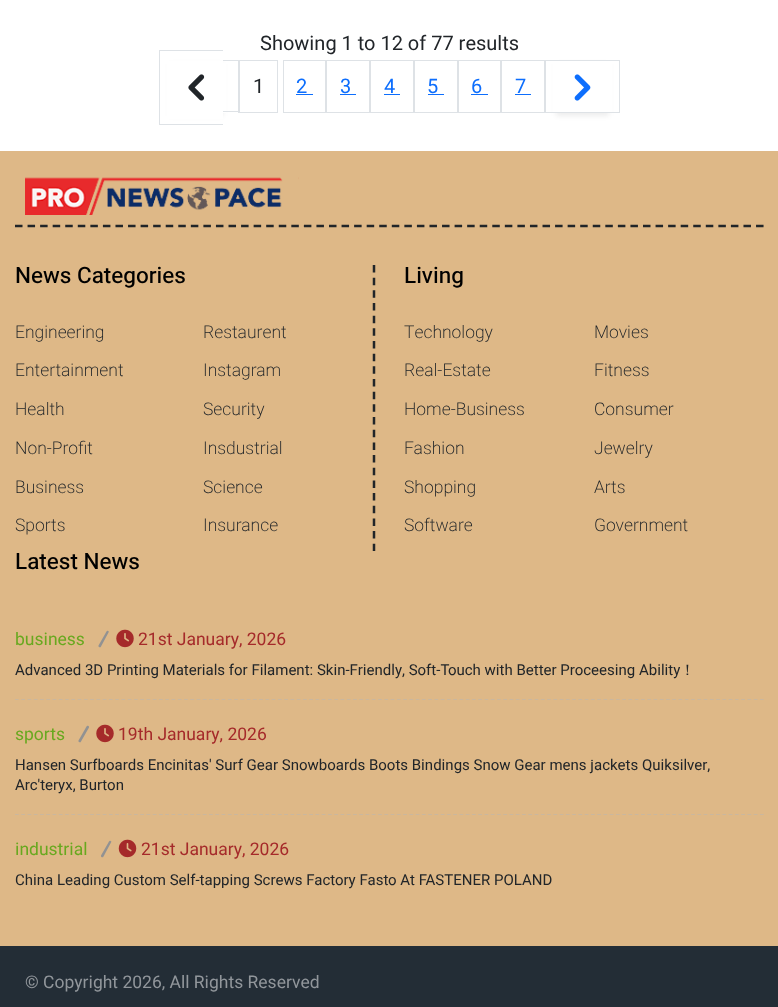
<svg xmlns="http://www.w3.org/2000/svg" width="778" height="1007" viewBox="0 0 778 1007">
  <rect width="100%" height="100%" fill="rgb(255,255,255)"/>
  <text x="260" y="50" font-family="Heebo" font-size="20" fill="rgb(33,37,41)">Showing 1 to 12 of 77 results</text>
  <rect x="170" y="64" width="53" height="52" fill="rgba(0,0,0,0.07)" filter="blur(2.5px)"/>
  <rect x="167" y="61" width="56" height="58" fill="rgb(255,255,255)"/>
  <image x="188" y="74" width="17" height="27" href="pic1.png"/>
  <rect x="239.5" y="60.5" width="38" height="52" fill="none" stroke="rgb(222,226,230)"/>
  <text x="253" y="93" font-family="Heebo" font-size="20" fill="rgb(33,37,41)">1</text>
  <rect x="159" y="50" width="64" height="1" fill="rgb(222,226,230)"/>
  <rect x="159" y="124" width="64" height="1" fill="rgb(222,226,230)"/>
  <rect x="159" y="50" width="1" height="75" fill="rgb(222,226,230)"/>
  <rect x="223" y="63" width="3" height="50" fill="rgb(255,255,255)"/>
  <rect x="223" y="60" width="16" height="1" fill="rgb(222,226,230)"/>
  <rect x="238" y="60" width="1" height="53" fill="rgb(222,226,230)"/>
  <rect x="223" y="111" width="16" height="1" fill="rgb(222,226,230)"/>
  <rect x="283.5" y="60.5" width="42" height="52" fill="none" stroke="rgb(222,226,230)"/>
  <text x="296" y="93" font-family="Heebo" font-size="20" fill="rgb(13,110,253)">2</text>
  <rect x="296" y="94" width="17" height="1" fill="rgb(13,110,253)"/>
  <rect x="326.5" y="60.5" width="43" height="52" fill="none" stroke="rgb(222,226,230)"/>
  <text x="340" y="93" font-family="Heebo" font-size="20" fill="rgb(13,110,253)">3</text>
  <rect x="340" y="94" width="16" height="1" fill="rgb(13,110,253)"/>
  <rect x="370.5" y="60.5" width="43" height="52" fill="none" stroke="rgb(222,226,230)"/>
  <text x="384" y="93" font-family="Heebo" font-size="20" fill="rgb(13,110,253)">4</text>
  <rect x="384" y="94" width="16" height="1" fill="rgb(13,110,253)"/>
  <rect x="414.5" y="60.5" width="43" height="52" fill="none" stroke="rgb(222,226,230)"/>
  <text x="427" y="93" font-family="Heebo" font-size="20" fill="rgb(13,110,253)">5</text>
  <rect x="428" y="94" width="16" height="1" fill="rgb(13,110,253)"/>
  <rect x="458.5" y="60.5" width="42" height="52" fill="none" stroke="rgb(222,226,230)"/>
  <text x="471" y="93" font-family="Heebo" font-size="20" fill="rgb(13,110,253)">6</text>
  <rect x="471" y="94" width="17" height="1" fill="rgb(13,110,253)"/>
  <rect x="501.5" y="60.5" width="43" height="52" fill="none" stroke="rgb(222,226,230)"/>
  <text x="515" y="93" font-family="Heebo" font-size="20" fill="rgb(13,110,253)">7</text>
  <rect x="556" y="64" width="53" height="52" fill="rgba(0,0,0,0.07)" filter="blur(2.5px)"/>
  <rect x="515" y="94" width="16" height="1" fill="rgb(13,110,253)"/>
  <rect x="553" y="61" width="59" height="51" fill="rgb(255,255,255)"/>
  <rect x="545.5" y="60.5" width="74" height="52" fill="none" stroke="rgb(222,226,230)"/>
  <image x="574" y="74" width="17" height="27" href="pic2.png"/>
  <rect x="0" y="151" width="778" height="795" fill="rgb(222,184,135)"/>
  <path d="M15 226H764" fill="none" stroke="rgb(33,37,41)" stroke-width="2.5" stroke-dasharray="7.5 5.06"/>
  <image x="25" y="177" width="274" height="38" href="pic3.png"/>
  <path d="M374 265V551" fill="none" stroke="rgb(33,37,41)" stroke-width="2.5" stroke-dasharray="7.5 5.17"/>
  <text x="15" y="283" font-family="Heebo" font-size="22.5" font-weight="500" fill="rgb(0,0,0)">News Categories</text>
  <g font-family="Heebo" font-size="17.5" font-weight="200" fill="rgb(33,37,41)">
    <text x="15" y="338">Engineering</text>
    <text x="203" y="338">Restaurent</text>
    <text x="15" y="376">Entertainment</text>
    <text x="203" y="376">Instagram</text>
    <text x="15" y="415">Health</text>
    <text x="203" y="415">Security</text>
    <text x="15" y="454">Non-Profit</text>
    <text x="203" y="454">Insdustrial</text>
    <text x="15" y="493">Business</text>
    <text x="203" y="493">Science</text>
    <text x="15" y="531">Sports</text>
    <text x="203" y="531">Insurance</text>
  </g>
  <text x="404" y="283" font-family="Heebo" font-size="22.5" font-weight="500" fill="rgb(0,0,0)">Living</text>
  <g font-family="Heebo" font-size="17.5" font-weight="200" fill="rgb(33,37,41)">
    <text x="404" y="338">Technology</text>
    <text x="594" y="338">Movies</text>
    <text x="404" y="376">Real-Estate</text>
    <text x="594" y="376">Fitness</text>
    <text x="404" y="415">Home-Business</text>
    <text x="594" y="415">Consumer</text>
    <text x="404" y="454">Fashion</text>
    <text x="594" y="454">Jewelry</text>
    <text x="404" y="493">Shopping</text>
    <text x="594" y="493">Arts</text>
    <text x="404" y="531">Software</text>
    <text x="594" y="531">Government</text>
  </g>
  <text x="15" y="569" font-family="Heebo" font-size="22.5" font-weight="500" fill="rgb(0,0,0)">Latest News</text>
  <path d="M15 699.5H764" fill="none" stroke="rgb(202,183,158)" stroke-width="1.2" stroke-dasharray="3.75 2.51"/>
  <text x="15" y="645" font-family="Heebo" font-size="17.5" fill="rgb(104,168,31)">business</text>
  <path d="M108 631C109 631 109 632 108.5 632.5L101 646.5C100.5 647.5 99.5 647.5 99 647C98.5 647 98.5 646 98.5 645.5L106.5 631.5C107 630.5 107.5 630.5 108 631Z" fill="rgb(146,146,146)"/>
  <image x="116" y="629" width="18" height="19" href="pic4.png"/>
  <text x="138" y="645" font-family="Heebo" font-size="17.5" fill="rgb(165,42,42)">21st January, 2026</text>
  <text x="15" y="675" font-family="Heebo" font-size="15" fill="rgb(33,37,41)">Advanced 3D Printing Materials for Filament: Skin-Friendly, Soft-Touch with Better Proceesing Ability</text>
  <text x="680" y="675" font-family="WenQuanYi Zen Hei" font-size="15" font-weight="500" fill="rgb(33,37,41)">！</text>
  <path d="M15 814.5H764" fill="none" stroke="rgb(202,183,158)" stroke-width="1.2" stroke-dasharray="3.75 2.51"/>
  <text x="15" y="740" font-family="Heebo" font-size="17.5" fill="rgb(104,168,31)">sports</text>
  <path d="M88.5 726C89 726 89 727 89 727.5L81 741.5C80.5 742.5 80 742.5 79 742C78.5 742 78.5 741 78.5 740.5L86.5 726.5C87 725.5 87.5 725.5 88.5 726Z" fill="rgb(146,146,146)"/>
  <image x="96" y="724" width="18" height="19" href="pic4.png"/>
  <text x="118" y="740" font-family="Heebo" font-size="17.5" fill="rgb(165,42,42)">19th January, 2026</text>
  <g font-family="Heebo" font-size="15" fill="rgb(33,37,41)">
    <text>
      <tspan x="15" y="770">Hansen Surfboards Encinitas' Surf Gear Snowboards Boots Bindings Snow Gear mens jackets Quiksilver,</tspan>
      <tspan x="15" y="790">Arc'teryx, Burton</tspan>
    </text>
  </g>
  <text x="15" y="855" font-family="Heebo" font-size="17.5" fill="rgb(104,168,31)">industrial</text>
  <path d="M110.5 841C111.5 841 111.5 842 111 842.5L103.5 856.5C103 857.5 102 857.5 101.5 857C101 857 101 856 101 855.5L109 841.5C109.5 840.5 110 840.5 110.5 841Z" fill="rgb(146,146,146)"/>
  <image x="118" y="839" width="19" height="19" href="pic5.png"/>
  <text x="141" y="855" font-family="Heebo" font-size="17.5" fill="rgb(165,42,42)">21st January, 2026</text>
  <text x="15" y="885" font-family="Heebo" font-size="15" fill="rgb(33,37,41)">China Leading Custom Self-tapping Screws Factory Fasto At FASTENER POLAND</text>
  <rect x="0" y="946" width="778" height="61" fill="rgb(35,45,54)"/>
  <text x="25" y="988" font-family="Heebo" font-size="17.5" fill="rgb(145,150,155)">© Copyright 2026, All Rights Reserved</text>
</svg>
